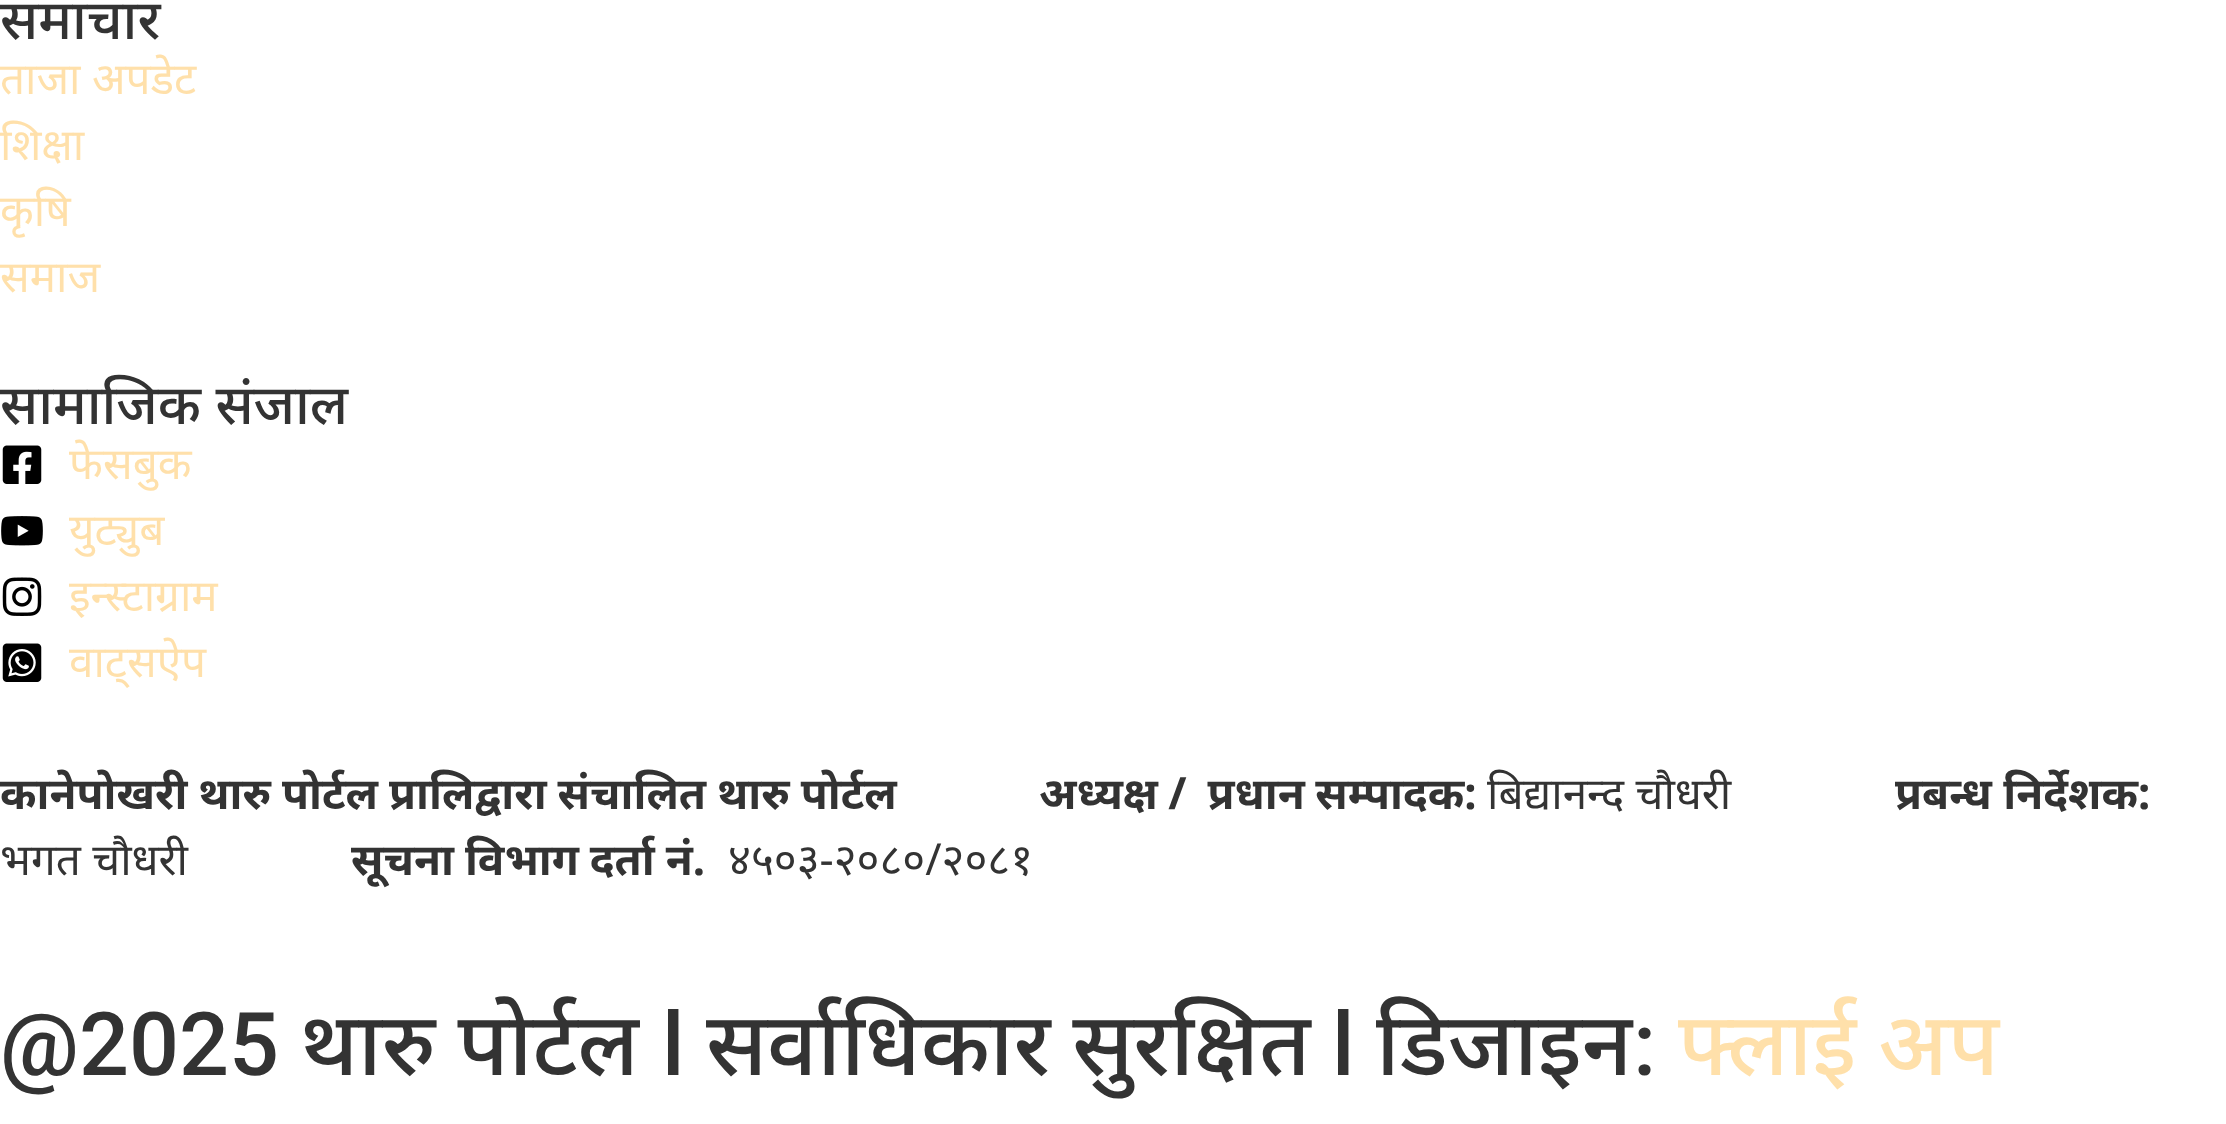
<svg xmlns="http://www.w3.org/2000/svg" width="2226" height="1124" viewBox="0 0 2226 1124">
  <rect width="100%" height="100%" fill="rgb(255,255,255)"/>
  <text x="0" y="39" font-family="Noto Sans" font-size="55" font-weight="500" fill="rgb(51,51,51)">समाचार</text>
  <g font-family="Noto Sans" font-size="44" fill="rgb(255,224,170)">
    <text>
      <tspan x="0" y="94">ताजा अपडेट</tspan>
      <tspan x="0" y="160">शिक्षा</tspan>
      <tspan x="0" y="226">कृषि</tspan>
      <tspan x="0" y="292">समाज</tspan>
    </text>
  </g>
  <text x="0" y="424" font-family="Noto Sans" font-size="55" font-weight="500" fill="rgb(51,51,51)">सामाजिक संजाल</text>
  <image x="2" y="445" width="40" height="39" href="pic1.png"/>
  <text x="69" y="479" font-family="Noto Sans" font-size="44" fill="rgb(255,224,170)">फेसबुक</text>
  <image x="1" y="516" width="42" height="30" href="pic2.png"/>
  <text x="69" y="545" font-family="Noto Sans" font-size="44" fill="rgb(255,224,170)">युट्युब</text>
  <image x="2" y="577" width="40" height="39" href="pic3.png"/>
  <text x="69" y="611" font-family="Noto Sans" font-size="44" fill="rgb(255,224,170)">इन्स्टाग्राम</text>
  <image x="2" y="643" width="40" height="39" href="pic4.png"/>
  <text x="69" y="677" font-family="Noto Sans" font-size="44" fill="rgb(255,224,170)">वाट्सऐप</text>
  <g font-family="Noto Sans" font-size="44" font-weight="bold" fill="rgb(51,51,51)">
    <text x="0" y="809" word-spacing="-0.5">कानेपाेखरी थारु पाेर्टल प्रालिद्वारा संचालित थारु पाेर्टल</text>
    <text x="1039" y="809" word-spacing="-1" xml:space="preserve">अध्यक्ष /  प्रधान सम्पादक:</text>
  </g>
  <text x="1487" y="809" font-family="Noto Sans" font-size="44" fill="rgb(51,51,51)">बिद्यानन्द चौधरी</text>
  <text x="1895" y="809" font-family="Noto Sans" font-size="44" font-weight="bold" fill="rgb(51,51,51)">प्रबन्ध निर्देशक:</text>
  <text x="0" y="875" font-family="Noto Sans" font-size="44" fill="rgb(51,51,51)">भगत चौधरी</text>
  <text x="351" y="875" word-spacing="-0.5" font-family="Noto Sans" font-size="44" font-weight="bold" fill="rgb(51,51,51)">सूचना विभाग दर्ता नं.</text>
  <text x="728" y="875" font-family="Noto Sans" font-size="44" fill="rgb(51,51,51)">४५०३-२०८०/२०८१</text>
  <text x="0" y="1075" font-family="Roboto" font-size="88" font-weight="500" fill="rgb(51,51,51)">@2025</text>
  <text x="300" y="1075" word-spacing="-1" font-family="Noto Sans" font-size="88" font-weight="500" fill="rgb(51,51,51)">थारु पोर्टल</text>
  <text x="662" y="1075" font-family="Roboto" font-size="88" font-weight="500" fill="rgb(51,51,51)">l</text>
  <text x="706" y="1075" word-spacing="-1" font-family="Noto Sans" font-size="88" font-weight="500" fill="rgb(51,51,51)">सर्वाधिकार सुरक्षित</text>
  <text x="1332" y="1075" font-family="Roboto" font-size="88" font-weight="500" fill="rgb(51,51,51)">l</text>
  <text x="1376" y="1075" font-family="Noto Sans" font-size="88" font-weight="500" fill="rgb(51,51,51)">डिजाइन</text>
  <text x="1633" y="1075" font-family="Roboto" font-size="88" font-weight="500" fill="rgb(51,51,51)">:</text>
  <text x="1678" y="1075" word-spacing="-1" font-family="Noto Sans" font-size="88" font-weight="500" fill="rgb(255,224,170)">फ्लाई अप</text>
</svg>
